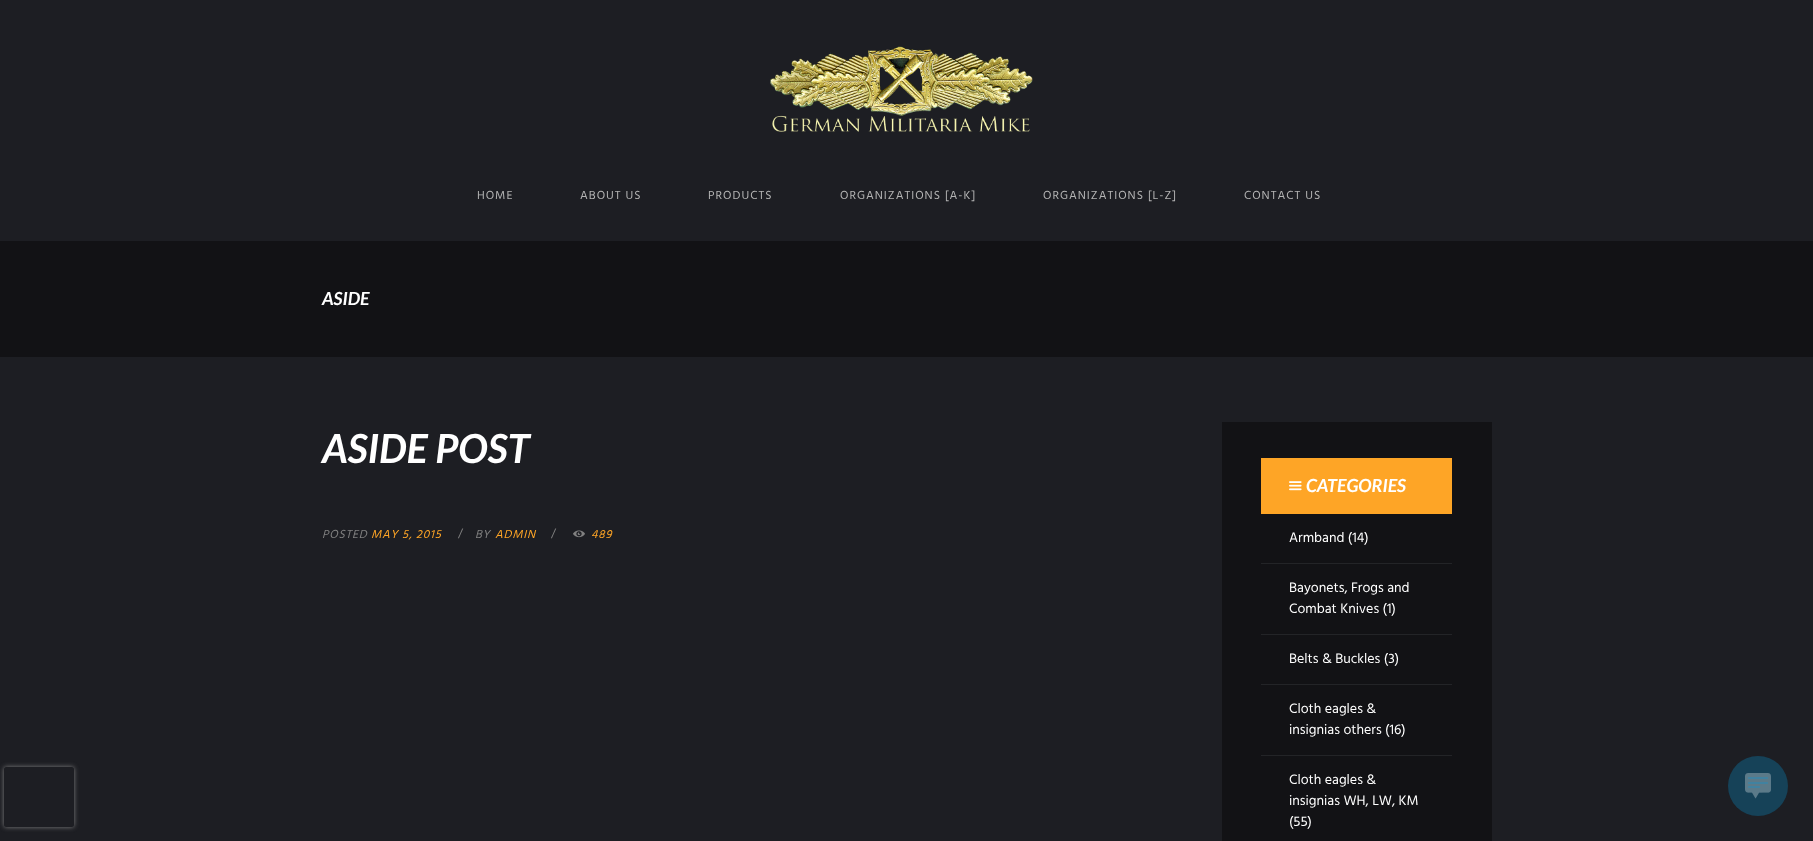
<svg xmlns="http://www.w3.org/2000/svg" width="1813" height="841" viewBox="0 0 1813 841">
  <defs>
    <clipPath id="clip1"><path d="M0 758H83V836H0ZM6 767H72C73 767 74 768 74 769V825C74 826 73 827 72 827H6C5 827 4 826 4 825V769C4 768 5 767 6 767Z" clip-rule="evenodd"/></clipPath>
  </defs>
  <rect width="100%" height="100%" fill="rgb(29,30,35)"/>
  <g clip-path="url(#clip1)">
    <rect x="4" y="767" width="70" height="60" rx="2" fill="rgb(128,128,128)" filter="blur(2.5px)"/>
  </g>
  <image x="770" y="46" width="263" height="86" href="pic1.png"/>
  <g font-family="Hind" font-size="12" letter-spacing="1" fill="rgb(180,180,180)">
    <text x="477" y="199">HOME</text>
    <text x="580" y="199">ABOUT US</text>
    <text x="708" y="199">PRODUCTS</text>
    <text x="840" y="199">ORGANIZATIONS [A-K]</text>
    <text x="1043" y="199">ORGANIZATIONS [L-Z]</text>
    <text x="1244" y="199">CONTACT US</text>
  </g>
  <rect x="0" y="241" width="1813" height="116" fill="rgb(18,18,21)"/>
  <text x="322" y="305" font-family="Lato" font-size="18" font-weight="bold" font-style="italic" fill="rgb(255,255,255)">ASIDE</text>
  <text x="322" y="463" font-family="Lato" font-size="40" font-weight="bold" font-style="italic" fill="rgb(255,255,255)">ASIDE POST</text>
  <text x="322" y="538" font-family="Hind" font-size="12" font-style="italic" letter-spacing="0.75" fill="rgb(128,128,128)">POSTED</text>
  <text x="371" y="538" font-family="Hind" font-size="12" font-style="italic" letter-spacing="0.75" fill="rgb(254,165,38)">MAY 5, 2015</text>
  <text x="458" y="537" font-family="Hind" font-size="12" letter-spacing="0.75" fill="rgb(128,128,128)">/</text>
  <text x="475" y="538" font-family="Hind" font-size="12" font-style="italic" letter-spacing="0.75" fill="rgb(128,128,128)">BY</text>
  <text x="495" y="538" font-family="Hind" font-size="12" font-style="italic" letter-spacing="0.75" fill="rgb(254,165,38)">ADMIN</text>
  <text x="551" y="537" font-family="Hind" font-size="12" letter-spacing="0.75" fill="rgb(128,128,128)">/</text>
  <image x="573" y="530" width="12" height="8" href="pic2.png"/>
  <text x="591" y="538" font-family="Hind" font-size="12" font-style="italic" letter-spacing="0.75" fill="rgb(254,165,38)">489</text>
  <rect x="1222" y="422" width="270" height="419" fill="rgb(18,18,21)"/>
  <rect x="1261" y="458" width="191" height="56" fill="rgb(254,165,38)"/>
  <image x="1289" y="481" width="13" height="10" href="pic3.png"/>
  <text x="1306" y="492" font-family="Lato" font-size="18" font-weight="bold" font-style="italic" fill="rgb(255,255,255)">CATEGORIES</text>
  <text x="1289" y="542" font-family="Hind" font-size="14" fill="rgb(255,255,255)">Armband (14)</text>
  <rect x="1261" y="563" width="191" height="1" fill="rgb(35,36,39)"/>
  <g font-family="Hind" font-size="14" fill="rgb(255,255,255)">
    <text>
      <tspan x="1289" y="592">Bayonets, Frogs and</tspan>
      <tspan x="1289" y="613">Combat Knives (1)</tspan>
    </text>
  </g>
  <rect x="1261" y="634" width="191" height="1" fill="rgb(35,36,39)"/>
  <text x="1289" y="663" font-family="Hind" font-size="14" fill="rgb(255,255,255)">Belts &amp; Buckles (3)</text>
  <rect x="1261" y="684" width="191" height="1" fill="rgb(35,36,39)"/>
  <g font-family="Hind" font-size="14" fill="rgb(255,255,255)">
    <text>
      <tspan x="1289" y="713">Cloth eagles &amp;</tspan>
      <tspan x="1289" y="734">insignias others (16)</tspan>
    </text>
  </g>
  <rect x="1261" y="755" width="191" height="1" fill="rgb(35,36,39)"/>
  <g font-family="Hind" font-size="14" fill="rgb(255,255,255)">
    <text>
      <tspan x="1289" y="784">Cloth eagles &amp;</tspan>
      <tspan x="1289" y="805">insignias WH, LW, KM</tspan>
      <tspan x="1289" y="826">(55)</tspan>
    </text>
  </g>
  <circle cx="1758" cy="786" r="30" fill="rgb(22,66,88)"/>
  <image x="1745" y="773" width="26" height="26" href="pic4.png"/>
</svg>
